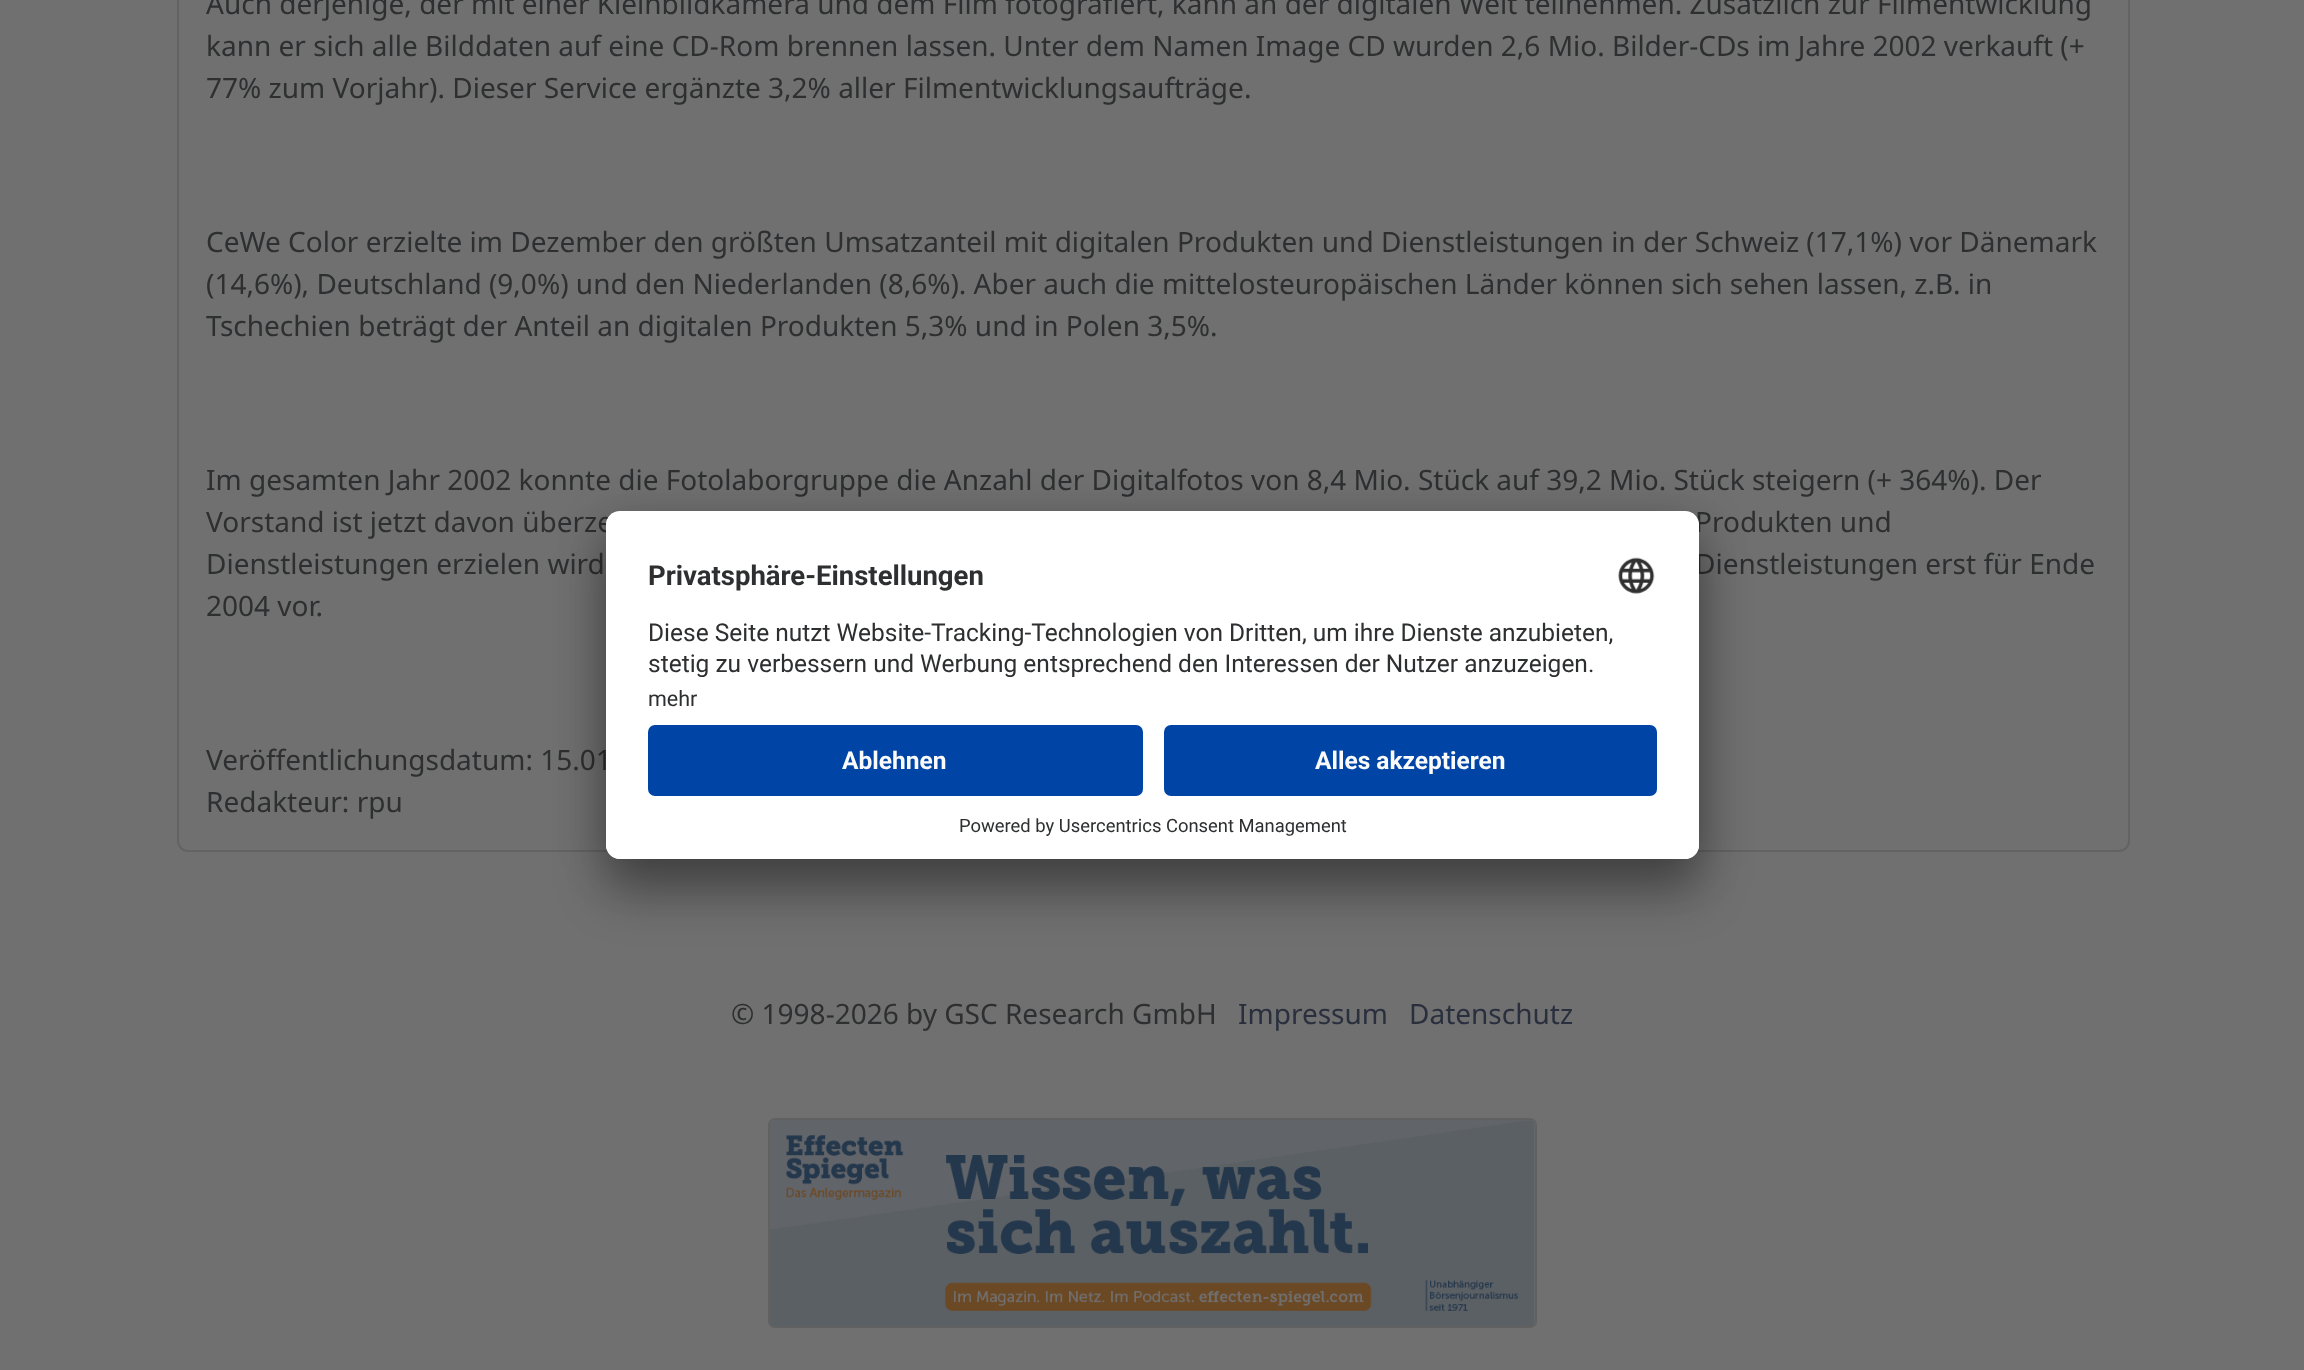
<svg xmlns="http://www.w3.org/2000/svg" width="2304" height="1370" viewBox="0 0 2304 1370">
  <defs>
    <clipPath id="clip1"><rect x="606" y="511" width="1093" height="348" rx="14"/></clipPath>
    <clipPath id="clip2"><path d="M620 511H1685C1692.5 511 1699 517.5 1699 525V711H606V525C606 517.5 612.5 511 620 511Z"/></clipPath>
  </defs>
  <rect width="100%" height="100%" fill="rgb(112,112,112)"/>
  <rect x="178" y="-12" width="1951" height="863" rx="10" fill="none" stroke="rgb(99,99,99)" stroke-width="2"/>
  <g font-family="Noto Sans" font-size="28" fill="rgb(46,47,48)">
    <text>
      <tspan x="206" y="14">Auch derjenige, der mit einer Kleinbildkamera und dem Film fotografiert, kann an der digitalen Welt teilnehmen. Zusätzlich zur Filmentwicklung</tspan>
      <tspan x="206" y="56">kann er sich alle Bilddaten auf eine CD-Rom brennen lassen. Unter dem Namen Image CD wurden 2,6 Mio. Bilder-CDs im Jahre 2002 verkauft (+</tspan>
      <tspan x="206" y="98">77% zum Vorjahr). Dieser Service ergänzte 3,2% aller Filmentwicklungsaufträge.</tspan>
    </text>
    <text>
      <tspan x="206" y="252">CeWe Color erzielte im Dezember den größten Umsatzanteil mit digitalen Produkten und Dienstleistungen in der Schweiz (17,1%) vor Dänemark</tspan>
      <tspan x="206" y="294">(14,6%), Deutschland (9,0%) und den Niederlanden (8,6%). Aber auch die mittelosteuropäischen Länder können sich sehen lassen, z.B. in</tspan>
      <tspan x="206" y="336">Tschechien beträgt der Anteil an digitalen Produkten 5,3% und in Polen 3,5%.</tspan>
    </text>
    <text>
      <tspan x="206" y="490">Im gesamten Jahr 2002 konnte die Fotolaborgruppe die Anzahl der Digitalfotos von 8,4 Mio. Stück auf 39,2 Mio. Stück steigern (+ 364%). Der</tspan>
      <tspan x="206" y="532">Vorstand ist jetzt davon überze</tspan>
    </text>
    <text x="1695" y="532">Produkten und</text>
    <text x="206" y="574">Dienstleistungen erzielen wird</text>
    <text x="1695" y="574">Dienstleistungen erst für Ende</text>
    <text x="206" y="616">2004 vor.</text>
    <text>
      <tspan x="206" y="770">Veröffentlichungsdatum: 15.01</tspan>
      <tspan x="206" y="812">Redakteur: rpu</tspan>
    </text>
    <text x="731" y="1024">© 1998-2026 by GSC Research GmbH</text>
  </g>
  <g font-family="Noto Sans" font-size="28" fill="rgb(42,47,62)">
    <text x="1238" y="1024">Impressum</text>
    <text x="1409" y="1024">Datenschutz</text>
  </g>
  <rect x="769" y="1119" width="767" height="208" rx="6" fill="none" stroke="rgb(97,97,97)" stroke-width="2"/>
  <image x="770" y="1120" width="765" height="206" href="pic1.png"/>
  <rect x="606" y="546" width="1093" height="348" rx="14" fill="rgba(0,0,0,0.3)" filter="blur(24.5px)"/>
  <rect x="606" y="520" width="1093" height="348" rx="14" fill="rgba(0,0,0,0.22)" filter="blur(23px)"/>
  <rect x="606" y="511" width="1093" height="348" rx="14" fill="rgb(255,255,255)"/>
  <g clip-path="url(#clip1)">
    <g clip-path="url(#clip2)">
      <rect x="606" y="513" width="1093" height="198" fill="rgb(255,255,255)"/>
    </g>
  </g>
  <text x="648" y="585" font-family="Roboto" font-size="27.5" font-weight="bold" fill="rgb(46,47,48)">Privatsphäre-Einstellungen</text>
  <image x="1618" y="557" width="37" height="37" href="pic2.png"/>
  <g font-family="Roboto" font-size="24.5" fill="rgb(46,47,48)">
    <text>
      <tspan x="648" y="641">Diese Seite nutzt Website-Tracking-Technologien von Dritten, um ihre Dienste anzubieten,</tspan>
      <tspan x="648" y="672">stetig zu verbessern und Werbung entsprechend den Interessen der Nutzer anzuzeigen.</tspan>
    </text>
  </g>
  <text x="648" y="706" font-family="Roboto" font-size="21.5" fill="rgb(46,47,48)">mehr</text>
  <path d="M606 711H1699V845C1699 852.5 1692.5 859 1685 859H620C612.5 859 606 852.5 606 845Z" fill="rgb(255,255,255)"/>
  <rect x="648" y="725" width="495" height="71" rx="7" fill="rgb(0,69,165)"/>
  <text x="842" y="769" font-family="Roboto" font-size="24.5" font-weight="bold" fill="rgb(250,250,250)">Ablehnen</text>
  <rect x="1164" y="725" width="493" height="71" rx="7" fill="rgb(0,69,165)"/>
  <text x="1315" y="769" font-family="Roboto" font-size="24.5" font-weight="bold" fill="rgb(250,250,250)">Alles akzeptieren</text>
  <text x="959" y="832" font-family="Roboto" font-size="18.4" fill="rgb(46,47,48)">Powered by Usercentrics Consent Management</text>
</svg>
